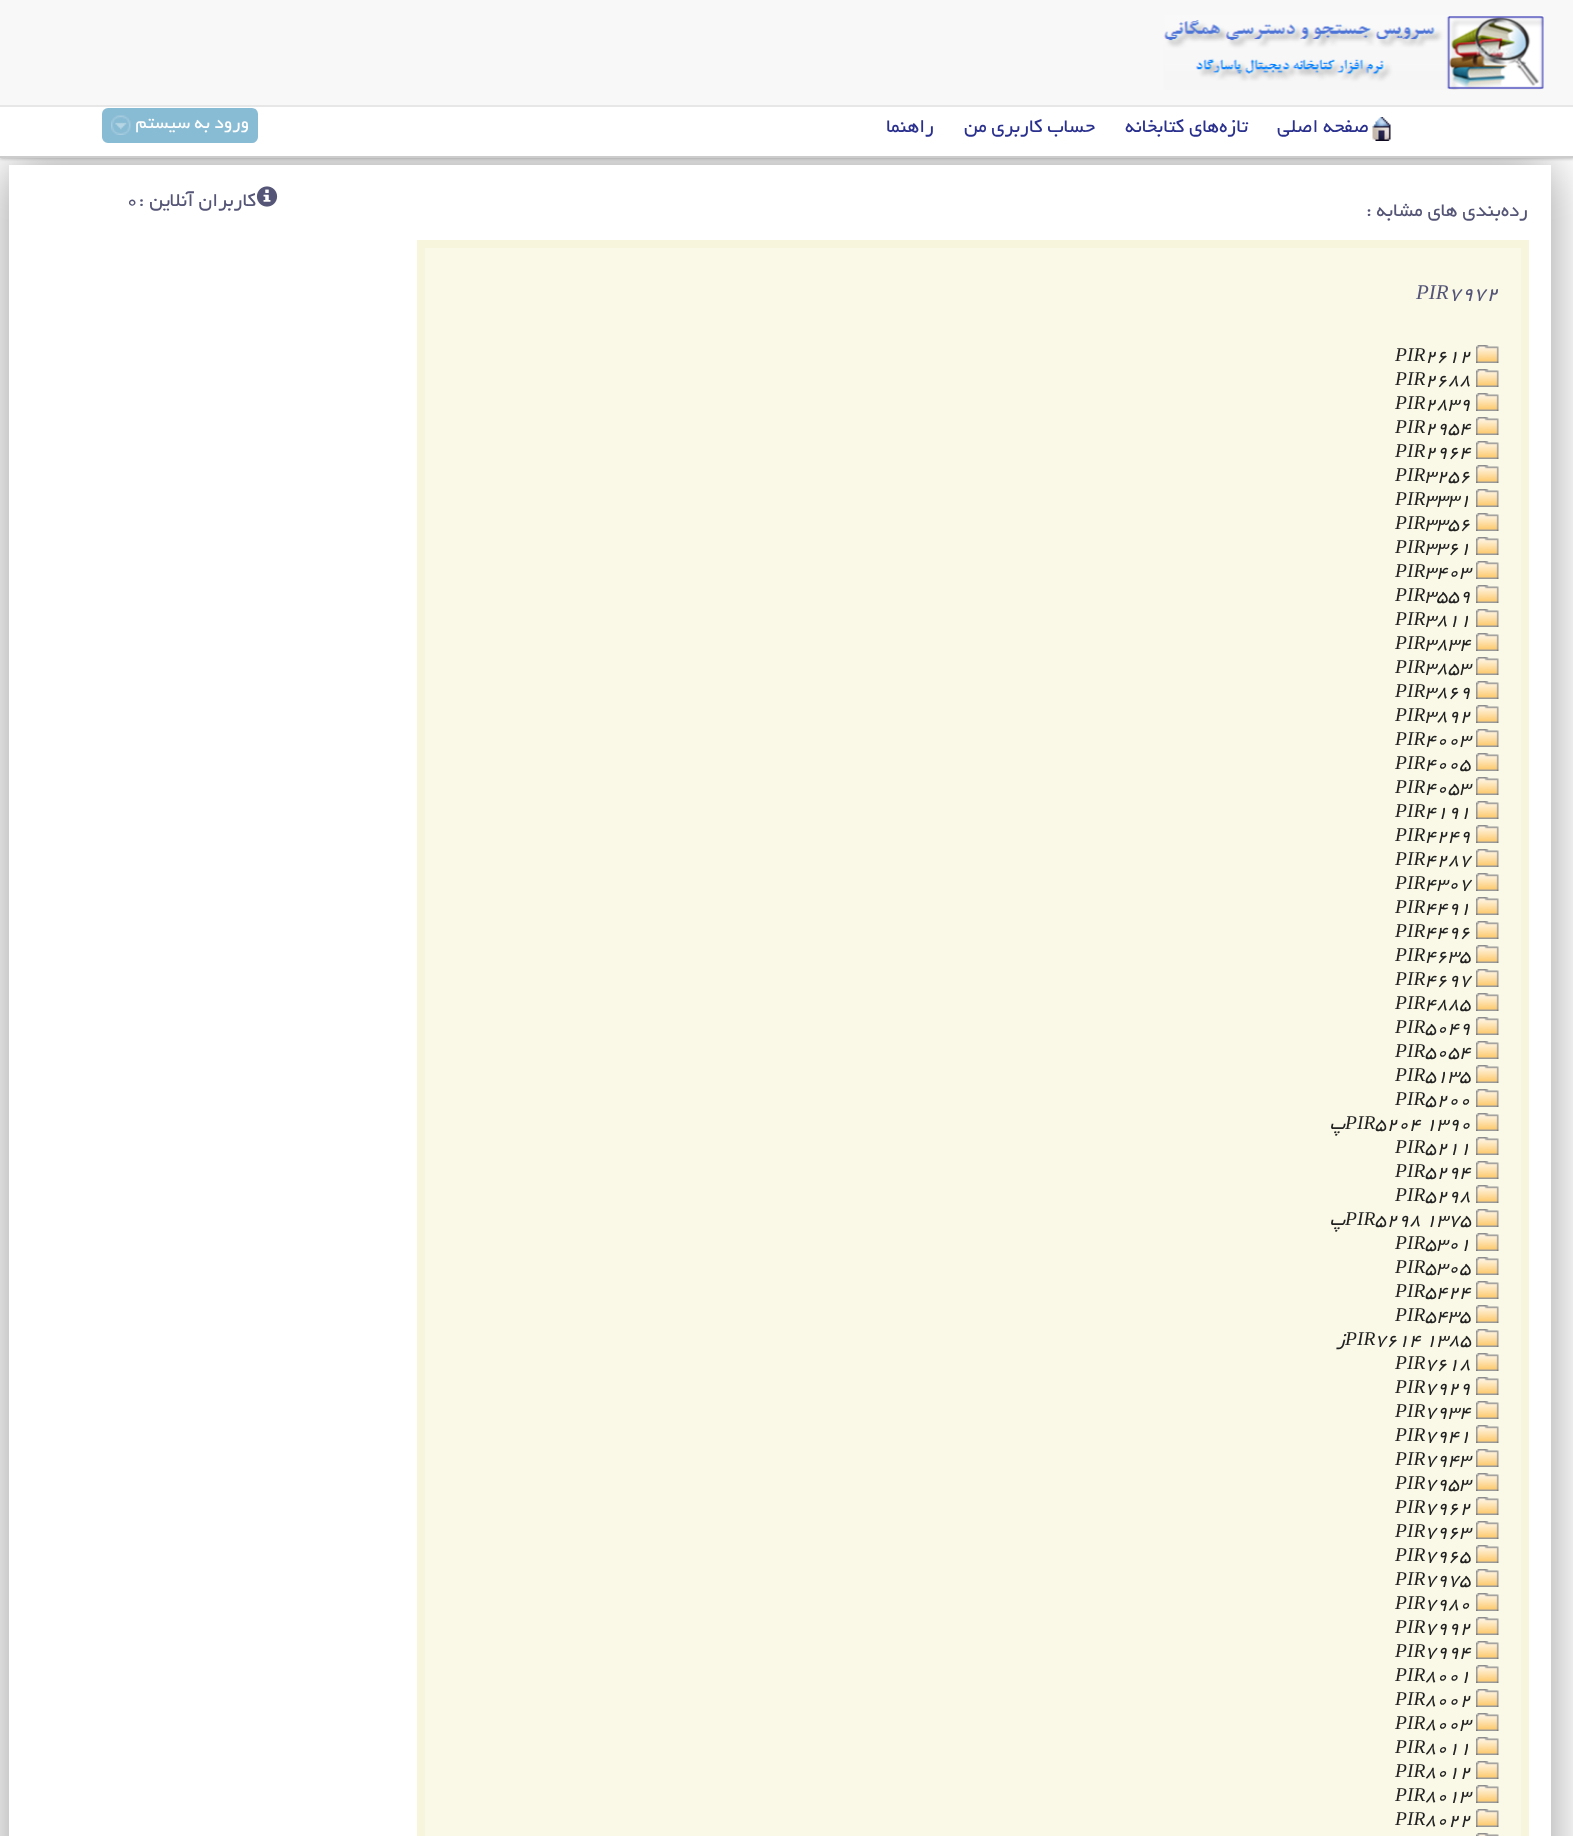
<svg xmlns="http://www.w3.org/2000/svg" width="1573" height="1836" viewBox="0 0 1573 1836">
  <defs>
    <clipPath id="clip1"><path d="M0 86H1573V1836H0ZM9 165H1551V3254H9Z" clip-rule="evenodd"/></clipPath>
  </defs>
  <rect width="100%" height="100%" fill="rgb(255,255,255)"/>
  <rect x="0" y="107" width="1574" height="52" fill="rgb(204,204,204)" filter="blur(1.5px)"/>
  <g clip-path="url(#clip1)">
    <rect x="9" y="165" width="1542" height="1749" fill="rgba(0,0,0,0.4)" filter="blur(26px)"/>
  </g>
  <rect x="0" y="0" width="1573" height="105" fill="rgb(248,248,248)"/>
  <rect x="0" y="105" width="1573" height="2" fill="rgb(231,231,231)"/>
  <image x="1163" y="15" width="381" height="75" href="pic1.png"/>
  <rect x="0" y="107" width="1573" height="49" fill="rgb(255,255,255)"/>
  <rect x="0" y="156" width="1573" height="2" fill="rgb(204,204,204)"/>
  <rect x="102" y="108" width="156" height="35" rx="6" fill="rgb(136,187,212)"/>
  <image x="111" y="115" width="20" height="20" href="pic2.png"/>
  <text x="249" y="128" font-family="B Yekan" font-size="19.5" direction="rtl" fill="rgb(255,255,255)">ورود به سیستم</text>
  <g font-family="B Yekan" font-size="21" direction="rtl" fill="rgb(42,48,141)">
    <text x="934" y="132">راهنما</text>
    <text x="1095" y="132">حساب کاربری من</text>
    <text x="1248" y="132">تازه‌های کتابخانه</text>
    <text x="1369" y="132">صفحه اصلی</text>
  </g>
  <image x="1372" y="117" width="19" height="24" href="pic3.png"/>
  <text x="126" y="206" font-family="B Yekan" font-size="21" fill="rgb(85,85,119)">0</text>
  <text x="256" y="206" font-family="B Yekan" font-size="21" direction="rtl" fill="rgb(85,85,119)">کاربران آنلاین :</text>
  <image x="256" y="186" width="22" height="21" href="pic4.png"/>
  <text x="1528" y="216" font-family="B Yekan" font-size="21" direction="rtl" fill="rgb(85,85,119)">رده‌بندی های مشابه :</text>
  <rect x="421" y="244" width="1104" height="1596" fill="rgb(250,249,231)" stroke="rgb(247,246,220)" stroke-width="8"/>
  <text x="1416" y="299" font-family="Liberation Serif" font-size="21" font-style="italic" fill="rgb(85,85,119)">PIR</text>
  <text x="1449" y="299" font-family="B Yekan" font-size="21" font-style="italic" fill="rgb(85,85,119)">7972</text>
  <text x="1395" y="361" font-family="Liberation Serif" font-size="19.5" font-style="italic" fill="rgb(34,34,34)">PIR</text>
  <text x="1425" y="361" font-family="B Yekan" font-size="19.5" font-style="italic" fill="rgb(34,34,34)">2612</text>
  <image x="1476" y="345" width="23" height="18" href="pic5.png"/>
  <text x="1395" y="385" font-family="Liberation Serif" font-size="19.5" font-style="italic" fill="rgb(34,34,34)">PIR</text>
  <text x="1425" y="385" font-family="B Yekan" font-size="19.5" font-style="italic" fill="rgb(34,34,34)">2688</text>
  <image x="1476" y="369" width="23" height="18" href="pic5.png"/>
  <text x="1395" y="409" font-family="Liberation Serif" font-size="19.5" font-style="italic" fill="rgb(34,34,34)">PIR</text>
  <text x="1425" y="409" font-family="B Yekan" font-size="19.5" font-style="italic" fill="rgb(34,34,34)">2839</text>
  <image x="1476" y="393" width="23" height="18" href="pic5.png"/>
  <text x="1395" y="433" font-family="Liberation Serif" font-size="19.5" font-style="italic" fill="rgb(34,34,34)">PIR</text>
  <text x="1425" y="433" font-family="B Yekan" font-size="19.5" font-style="italic" fill="rgb(34,34,34)">2954</text>
  <image x="1476" y="417" width="23" height="18" href="pic5.png"/>
  <text x="1395" y="457" font-family="Liberation Serif" font-size="19.5" font-style="italic" fill="rgb(34,34,34)">PIR</text>
  <text x="1425" y="457" font-family="B Yekan" font-size="19.5" font-style="italic" fill="rgb(34,34,34)">2964</text>
  <image x="1476" y="441" width="23" height="18" href="pic5.png"/>
  <text x="1395" y="481" font-family="Liberation Serif" font-size="19.5" font-style="italic" fill="rgb(34,34,34)">PIR</text>
  <text x="1425" y="481" font-family="B Yekan" font-size="19.5" font-style="italic" fill="rgb(34,34,34)">3256</text>
  <image x="1476" y="465" width="23" height="18" href="pic5.png"/>
  <text x="1395" y="505" font-family="Liberation Serif" font-size="19.5" font-style="italic" fill="rgb(34,34,34)">PIR</text>
  <text x="1425" y="505" font-family="B Yekan" font-size="19.5" font-style="italic" fill="rgb(34,34,34)">3331</text>
  <image x="1476" y="489" width="23" height="18" href="pic5.png"/>
  <text x="1395" y="529" font-family="Liberation Serif" font-size="19.5" font-style="italic" fill="rgb(34,34,34)">PIR</text>
  <text x="1425" y="529" font-family="B Yekan" font-size="19.5" font-style="italic" fill="rgb(34,34,34)">3356</text>
  <image x="1476" y="513" width="23" height="18" href="pic5.png"/>
  <text x="1395" y="553" font-family="Liberation Serif" font-size="19.5" font-style="italic" fill="rgb(34,34,34)">PIR</text>
  <text x="1425" y="553" font-family="B Yekan" font-size="19.5" font-style="italic" fill="rgb(34,34,34)">3361</text>
  <image x="1476" y="537" width="23" height="18" href="pic5.png"/>
  <text x="1395" y="577" font-family="Liberation Serif" font-size="19.5" font-style="italic" fill="rgb(34,34,34)">PIR</text>
  <text x="1425" y="577" font-family="B Yekan" font-size="19.5" font-style="italic" fill="rgb(34,34,34)">3403</text>
  <image x="1476" y="561" width="23" height="18" href="pic5.png"/>
  <text x="1395" y="601" font-family="Liberation Serif" font-size="19.5" font-style="italic" fill="rgb(34,34,34)">PIR</text>
  <text x="1425" y="601" font-family="B Yekan" font-size="19.5" font-style="italic" fill="rgb(34,34,34)">3559</text>
  <image x="1476" y="585" width="23" height="18" href="pic5.png"/>
  <text x="1395" y="625" font-family="Liberation Serif" font-size="19.5" font-style="italic" fill="rgb(34,34,34)">PIR</text>
  <text x="1425" y="625" font-family="B Yekan" font-size="19.5" font-style="italic" fill="rgb(34,34,34)">3811</text>
  <image x="1476" y="609" width="23" height="18" href="pic5.png"/>
  <text x="1395" y="649" font-family="Liberation Serif" font-size="19.5" font-style="italic" fill="rgb(34,34,34)">PIR</text>
  <text x="1425" y="649" font-family="B Yekan" font-size="19.5" font-style="italic" fill="rgb(34,34,34)">3834</text>
  <image x="1476" y="633" width="23" height="18" href="pic5.png"/>
  <text x="1395" y="673" font-family="Liberation Serif" font-size="19.5" font-style="italic" fill="rgb(34,34,34)">PIR</text>
  <text x="1425" y="673" font-family="B Yekan" font-size="19.5" font-style="italic" fill="rgb(34,34,34)">3853</text>
  <image x="1476" y="657" width="23" height="18" href="pic5.png"/>
  <text x="1395" y="697" font-family="Liberation Serif" font-size="19.5" font-style="italic" fill="rgb(34,34,34)">PIR</text>
  <text x="1425" y="697" font-family="B Yekan" font-size="19.5" font-style="italic" fill="rgb(34,34,34)">3869</text>
  <image x="1476" y="681" width="23" height="18" href="pic5.png"/>
  <text x="1395" y="721" font-family="Liberation Serif" font-size="19.5" font-style="italic" fill="rgb(34,34,34)">PIR</text>
  <text x="1425" y="721" font-family="B Yekan" font-size="19.5" font-style="italic" fill="rgb(34,34,34)">3892</text>
  <image x="1476" y="705" width="23" height="18" href="pic5.png"/>
  <text x="1395" y="745" font-family="Liberation Serif" font-size="19.5" font-style="italic" fill="rgb(34,34,34)">PIR</text>
  <text x="1425" y="745" font-family="B Yekan" font-size="19.5" font-style="italic" fill="rgb(34,34,34)">4003</text>
  <image x="1476" y="729" width="23" height="18" href="pic5.png"/>
  <text x="1395" y="769" font-family="Liberation Serif" font-size="19.5" font-style="italic" fill="rgb(34,34,34)">PIR</text>
  <text x="1425" y="769" font-family="B Yekan" font-size="19.5" font-style="italic" fill="rgb(34,34,34)">4005</text>
  <image x="1476" y="753" width="23" height="18" href="pic5.png"/>
  <text x="1395" y="793" font-family="Liberation Serif" font-size="19.5" font-style="italic" fill="rgb(34,34,34)">PIR</text>
  <text x="1425" y="793" font-family="B Yekan" font-size="19.5" font-style="italic" fill="rgb(34,34,34)">4053</text>
  <image x="1476" y="777" width="23" height="18" href="pic5.png"/>
  <text x="1395" y="817" font-family="Liberation Serif" font-size="19.5" font-style="italic" fill="rgb(34,34,34)">PIR</text>
  <text x="1425" y="817" font-family="B Yekan" font-size="19.5" font-style="italic" fill="rgb(34,34,34)">4191</text>
  <image x="1476" y="801" width="23" height="18" href="pic5.png"/>
  <text x="1395" y="841" font-family="Liberation Serif" font-size="19.5" font-style="italic" fill="rgb(34,34,34)">PIR</text>
  <text x="1425" y="841" font-family="B Yekan" font-size="19.5" font-style="italic" fill="rgb(34,34,34)">4249</text>
  <image x="1476" y="825" width="23" height="18" href="pic5.png"/>
  <text x="1395" y="865" font-family="Liberation Serif" font-size="19.5" font-style="italic" fill="rgb(34,34,34)">PIR</text>
  <text x="1425" y="865" font-family="B Yekan" font-size="19.5" font-style="italic" fill="rgb(34,34,34)">4287</text>
  <image x="1476" y="849" width="23" height="18" href="pic5.png"/>
  <text x="1395" y="889" font-family="Liberation Serif" font-size="19.5" font-style="italic" fill="rgb(34,34,34)">PIR</text>
  <text x="1425" y="889" font-family="B Yekan" font-size="19.5" font-style="italic" fill="rgb(34,34,34)">4307</text>
  <image x="1476" y="873" width="23" height="18" href="pic5.png"/>
  <text x="1395" y="913" font-family="Liberation Serif" font-size="19.5" font-style="italic" fill="rgb(34,34,34)">PIR</text>
  <text x="1425" y="913" font-family="B Yekan" font-size="19.5" font-style="italic" fill="rgb(34,34,34)">4491</text>
  <image x="1476" y="897" width="23" height="18" href="pic5.png"/>
  <text x="1395" y="937" font-family="Liberation Serif" font-size="19.5" font-style="italic" fill="rgb(34,34,34)">PIR</text>
  <text x="1425" y="937" font-family="B Yekan" font-size="19.5" font-style="italic" fill="rgb(34,34,34)">4496</text>
  <image x="1476" y="921" width="23" height="18" href="pic5.png"/>
  <text x="1395" y="961" font-family="Liberation Serif" font-size="19.5" font-style="italic" fill="rgb(34,34,34)">PIR</text>
  <text x="1425" y="961" font-family="B Yekan" font-size="19.5" font-style="italic" fill="rgb(34,34,34)">4635</text>
  <image x="1476" y="945" width="23" height="18" href="pic5.png"/>
  <text x="1395" y="985" font-family="Liberation Serif" font-size="19.5" font-style="italic" fill="rgb(34,34,34)">PIR</text>
  <text x="1425" y="985" font-family="B Yekan" font-size="19.5" font-style="italic" fill="rgb(34,34,34)">4697</text>
  <image x="1476" y="969" width="23" height="18" href="pic5.png"/>
  <text x="1395" y="1009" font-family="Liberation Serif" font-size="19.5" font-style="italic" fill="rgb(34,34,34)">PIR</text>
  <text x="1425" y="1009" font-family="B Yekan" font-size="19.5" font-style="italic" fill="rgb(34,34,34)">4885</text>
  <image x="1476" y="993" width="23" height="18" href="pic5.png"/>
  <text x="1395" y="1033" font-family="Liberation Serif" font-size="19.5" font-style="italic" fill="rgb(34,34,34)">PIR</text>
  <text x="1425" y="1033" font-family="B Yekan" font-size="19.5" font-style="italic" fill="rgb(34,34,34)">5049</text>
  <image x="1476" y="1017" width="23" height="18" href="pic5.png"/>
  <text x="1395" y="1057" font-family="Liberation Serif" font-size="19.5" font-style="italic" fill="rgb(34,34,34)">PIR</text>
  <text x="1425" y="1057" font-family="B Yekan" font-size="19.5" font-style="italic" fill="rgb(34,34,34)">5054</text>
  <image x="1476" y="1041" width="23" height="18" href="pic5.png"/>
  <text x="1395" y="1081" font-family="Liberation Serif" font-size="19.5" font-style="italic" fill="rgb(34,34,34)">PIR</text>
  <text x="1425" y="1081" font-family="B Yekan" font-size="19.5" font-style="italic" fill="rgb(34,34,34)">5135</text>
  <image x="1476" y="1065" width="23" height="18" href="pic5.png"/>
  <text x="1395" y="1105" font-family="Liberation Serif" font-size="19.5" font-style="italic" fill="rgb(34,34,34)">PIR</text>
  <text x="1425" y="1105" font-family="B Yekan" font-size="19.5" font-style="italic" fill="rgb(34,34,34)">5200</text>
  <image x="1476" y="1089" width="23" height="18" href="pic5.png"/>
  <text x="1345" y="1129" font-family="B Yekan" font-size="19.5" font-style="italic" direction="rtl" fill="rgb(34,34,34)">پ</text>
  <text x="1345" y="1129" font-family="Liberation Serif" font-size="19.5" font-style="italic" fill="rgb(34,34,34)">PIR</text>
  <text x="1375" y="1129" font-family="B Yekan" font-size="19.5" font-style="italic" fill="rgb(34,34,34)">5204 1390</text>
  <image x="1476" y="1113" width="23" height="18" href="pic5.png"/>
  <text x="1395" y="1153" font-family="Liberation Serif" font-size="19.5" font-style="italic" fill="rgb(34,34,34)">PIR</text>
  <text x="1425" y="1153" font-family="B Yekan" font-size="19.5" font-style="italic" fill="rgb(34,34,34)">5211</text>
  <image x="1476" y="1137" width="23" height="18" href="pic5.png"/>
  <text x="1395" y="1177" font-family="Liberation Serif" font-size="19.5" font-style="italic" fill="rgb(34,34,34)">PIR</text>
  <text x="1425" y="1177" font-family="B Yekan" font-size="19.5" font-style="italic" fill="rgb(34,34,34)">5294</text>
  <image x="1476" y="1161" width="23" height="18" href="pic5.png"/>
  <text x="1395" y="1201" font-family="Liberation Serif" font-size="19.5" font-style="italic" fill="rgb(34,34,34)">PIR</text>
  <text x="1425" y="1201" font-family="B Yekan" font-size="19.5" font-style="italic" fill="rgb(34,34,34)">5298</text>
  <image x="1476" y="1185" width="23" height="18" href="pic5.png"/>
  <text x="1345" y="1225" font-family="B Yekan" font-size="19.5" font-style="italic" direction="rtl" fill="rgb(34,34,34)">پ</text>
  <text x="1345" y="1225" font-family="Liberation Serif" font-size="19.5" font-style="italic" fill="rgb(34,34,34)">PIR</text>
  <text x="1375" y="1225" font-family="B Yekan" font-size="19.5" font-style="italic" fill="rgb(34,34,34)">5298 1375</text>
  <image x="1476" y="1209" width="23" height="18" href="pic5.png"/>
  <text x="1395" y="1249" font-family="Liberation Serif" font-size="19.5" font-style="italic" fill="rgb(34,34,34)">PIR</text>
  <text x="1425" y="1249" font-family="B Yekan" font-size="19.5" font-style="italic" fill="rgb(34,34,34)">5301</text>
  <image x="1476" y="1233" width="23" height="18" href="pic5.png"/>
  <text x="1395" y="1273" font-family="Liberation Serif" font-size="19.5" font-style="italic" fill="rgb(34,34,34)">PIR</text>
  <text x="1425" y="1273" font-family="B Yekan" font-size="19.5" font-style="italic" fill="rgb(34,34,34)">5305</text>
  <image x="1476" y="1257" width="23" height="18" href="pic5.png"/>
  <text x="1395" y="1297" font-family="Liberation Serif" font-size="19.5" font-style="italic" fill="rgb(34,34,34)">PIR</text>
  <text x="1425" y="1297" font-family="B Yekan" font-size="19.5" font-style="italic" fill="rgb(34,34,34)">5424</text>
  <image x="1476" y="1281" width="23" height="18" href="pic5.png"/>
  <text x="1395" y="1321" font-family="Liberation Serif" font-size="19.5" font-style="italic" fill="rgb(34,34,34)">PIR</text>
  <text x="1425" y="1321" font-family="B Yekan" font-size="19.5" font-style="italic" fill="rgb(34,34,34)">5435</text>
  <image x="1476" y="1305" width="23" height="18" href="pic5.png"/>
  <text x="1345" y="1345" font-family="B Yekan" font-size="19.5" font-style="italic" direction="rtl" fill="rgb(34,34,34)">ز</text>
  <text x="1345" y="1345" font-family="Liberation Serif" font-size="19.5" font-style="italic" fill="rgb(34,34,34)">PIR</text>
  <text x="1375" y="1345" font-family="B Yekan" font-size="19.5" font-style="italic" fill="rgb(34,34,34)">7614 1385</text>
  <image x="1476" y="1329" width="23" height="18" href="pic5.png"/>
  <text x="1395" y="1369" font-family="Liberation Serif" font-size="19.5" font-style="italic" fill="rgb(34,34,34)">PIR</text>
  <text x="1425" y="1369" font-family="B Yekan" font-size="19.5" font-style="italic" fill="rgb(34,34,34)">7618</text>
  <image x="1476" y="1353" width="23" height="18" href="pic5.png"/>
  <text x="1395" y="1393" font-family="Liberation Serif" font-size="19.5" font-style="italic" fill="rgb(34,34,34)">PIR</text>
  <text x="1425" y="1393" font-family="B Yekan" font-size="19.5" font-style="italic" fill="rgb(34,34,34)">7929</text>
  <image x="1476" y="1377" width="23" height="18" href="pic5.png"/>
  <text x="1395" y="1417" font-family="Liberation Serif" font-size="19.5" font-style="italic" fill="rgb(34,34,34)">PIR</text>
  <text x="1425" y="1417" font-family="B Yekan" font-size="19.5" font-style="italic" fill="rgb(34,34,34)">7934</text>
  <image x="1476" y="1401" width="23" height="18" href="pic5.png"/>
  <text x="1395" y="1441" font-family="Liberation Serif" font-size="19.5" font-style="italic" fill="rgb(34,34,34)">PIR</text>
  <text x="1425" y="1441" font-family="B Yekan" font-size="19.5" font-style="italic" fill="rgb(34,34,34)">7941</text>
  <image x="1476" y="1425" width="23" height="18" href="pic5.png"/>
  <text x="1395" y="1465" font-family="Liberation Serif" font-size="19.5" font-style="italic" fill="rgb(34,34,34)">PIR</text>
  <text x="1425" y="1465" font-family="B Yekan" font-size="19.5" font-style="italic" fill="rgb(34,34,34)">7943</text>
  <image x="1476" y="1449" width="23" height="18" href="pic5.png"/>
  <text x="1395" y="1489" font-family="Liberation Serif" font-size="19.5" font-style="italic" fill="rgb(34,34,34)">PIR</text>
  <text x="1425" y="1489" font-family="B Yekan" font-size="19.5" font-style="italic" fill="rgb(34,34,34)">7953</text>
  <image x="1476" y="1473" width="23" height="18" href="pic5.png"/>
  <text x="1395" y="1513" font-family="Liberation Serif" font-size="19.5" font-style="italic" fill="rgb(34,34,34)">PIR</text>
  <text x="1425" y="1513" font-family="B Yekan" font-size="19.5" font-style="italic" fill="rgb(34,34,34)">7962</text>
  <image x="1476" y="1497" width="23" height="18" href="pic5.png"/>
  <text x="1395" y="1537" font-family="Liberation Serif" font-size="19.5" font-style="italic" fill="rgb(34,34,34)">PIR</text>
  <text x="1425" y="1537" font-family="B Yekan" font-size="19.5" font-style="italic" fill="rgb(34,34,34)">7963</text>
  <image x="1476" y="1521" width="23" height="18" href="pic5.png"/>
  <text x="1395" y="1561" font-family="Liberation Serif" font-size="19.5" font-style="italic" fill="rgb(34,34,34)">PIR</text>
  <text x="1425" y="1561" font-family="B Yekan" font-size="19.5" font-style="italic" fill="rgb(34,34,34)">7965</text>
  <image x="1476" y="1545" width="23" height="18" href="pic5.png"/>
  <text x="1395" y="1585" font-family="Liberation Serif" font-size="19.5" font-style="italic" fill="rgb(34,34,34)">PIR</text>
  <text x="1425" y="1585" font-family="B Yekan" font-size="19.5" font-style="italic" fill="rgb(34,34,34)">7975</text>
  <image x="1476" y="1569" width="23" height="18" href="pic5.png"/>
  <text x="1395" y="1609" font-family="Liberation Serif" font-size="19.5" font-style="italic" fill="rgb(34,34,34)">PIR</text>
  <text x="1425" y="1609" font-family="B Yekan" font-size="19.5" font-style="italic" fill="rgb(34,34,34)">7980</text>
  <image x="1476" y="1593" width="23" height="18" href="pic5.png"/>
  <text x="1395" y="1633" font-family="Liberation Serif" font-size="19.5" font-style="italic" fill="rgb(34,34,34)">PIR</text>
  <text x="1425" y="1633" font-family="B Yekan" font-size="19.5" font-style="italic" fill="rgb(34,34,34)">7992</text>
  <image x="1476" y="1617" width="23" height="18" href="pic5.png"/>
  <text x="1395" y="1657" font-family="Liberation Serif" font-size="19.5" font-style="italic" fill="rgb(34,34,34)">PIR</text>
  <text x="1425" y="1657" font-family="B Yekan" font-size="19.5" font-style="italic" fill="rgb(34,34,34)">7994</text>
  <image x="1476" y="1641" width="23" height="18" href="pic5.png"/>
  <text x="1395" y="1681" font-family="Liberation Serif" font-size="19.5" font-style="italic" fill="rgb(34,34,34)">PIR</text>
  <text x="1425" y="1681" font-family="B Yekan" font-size="19.5" font-style="italic" fill="rgb(34,34,34)">8001</text>
  <image x="1476" y="1665" width="23" height="18" href="pic5.png"/>
  <text x="1395" y="1705" font-family="Liberation Serif" font-size="19.5" font-style="italic" fill="rgb(34,34,34)">PIR</text>
  <text x="1425" y="1705" font-family="B Yekan" font-size="19.5" font-style="italic" fill="rgb(34,34,34)">8002</text>
  <image x="1476" y="1689" width="23" height="18" href="pic5.png"/>
  <text x="1395" y="1729" font-family="Liberation Serif" font-size="19.5" font-style="italic" fill="rgb(34,34,34)">PIR</text>
  <text x="1425" y="1729" font-family="B Yekan" font-size="19.5" font-style="italic" fill="rgb(34,34,34)">8003</text>
  <image x="1476" y="1713" width="23" height="18" href="pic5.png"/>
  <text x="1395" y="1753" font-family="Liberation Serif" font-size="19.5" font-style="italic" fill="rgb(34,34,34)">PIR</text>
  <text x="1425" y="1753" font-family="B Yekan" font-size="19.5" font-style="italic" fill="rgb(34,34,34)">8011</text>
  <image x="1476" y="1737" width="23" height="18" href="pic5.png"/>
  <text x="1395" y="1777" font-family="Liberation Serif" font-size="19.5" font-style="italic" fill="rgb(34,34,34)">PIR</text>
  <text x="1425" y="1777" font-family="B Yekan" font-size="19.5" font-style="italic" fill="rgb(34,34,34)">8012</text>
  <image x="1476" y="1761" width="23" height="18" href="pic5.png"/>
  <text x="1395" y="1801" font-family="Liberation Serif" font-size="19.5" font-style="italic" fill="rgb(34,34,34)">PIR</text>
  <text x="1425" y="1801" font-family="B Yekan" font-size="19.5" font-style="italic" fill="rgb(34,34,34)">8013</text>
  <image x="1476" y="1785" width="23" height="18" href="pic5.png"/>
  <text x="1395" y="1825" font-family="Liberation Serif" font-size="19.5" font-style="italic" fill="rgb(34,34,34)">PIR</text>
  <text x="1425" y="1825" font-family="B Yekan" font-size="19.5" font-style="italic" fill="rgb(34,34,34)">8022</text>
  <image x="1476" y="1809" width="23" height="18" href="pic5.png"/>
  <image x="1476" y="1833" width="23" height="3" href="pic6.png"/>
</svg>
